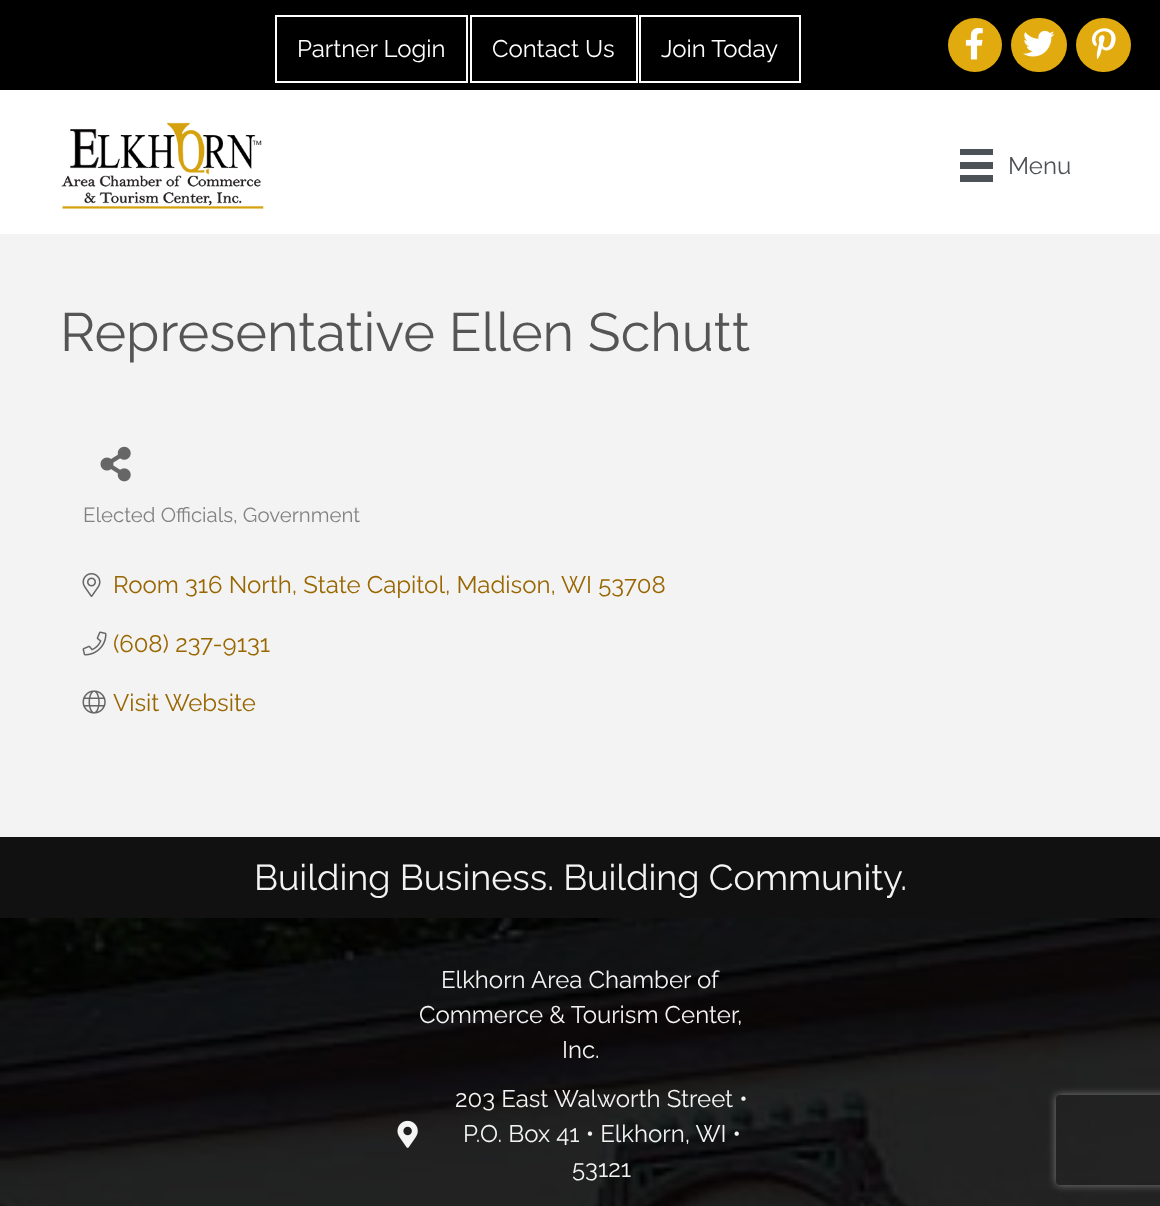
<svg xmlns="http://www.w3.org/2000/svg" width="1160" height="1206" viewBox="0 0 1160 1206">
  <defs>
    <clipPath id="clip1"><path d="M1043 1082H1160V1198H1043ZM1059 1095H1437C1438.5 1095 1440 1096.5 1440 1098V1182C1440 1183.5 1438.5 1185 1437 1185H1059C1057.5 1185 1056 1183.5 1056 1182V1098C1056 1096.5 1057.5 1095 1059 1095Z" clip-rule="evenodd"/></clipPath>
  </defs>
  <rect width="100%" height="100%" fill="rgb(0,0,0)"/>
  <rect x="276" y="16" width="191" height="66" fill="none" stroke="rgb(255,255,255)" stroke-width="2"/>
  <text x="297" y="57" font-family="Raleway" font-size="24" fill="rgb(255,255,255)">Partner Login</text>
  <rect x="471" y="16" width="166" height="66" fill="none" stroke="rgb(255,255,255)" stroke-width="2"/>
  <text x="492" y="57" font-family="Raleway" font-size="24" fill="rgb(255,255,255)">Contact Us</text>
  <rect x="640" y="16" width="160" height="66" fill="none" stroke="rgb(255,255,255)" stroke-width="2"/>
  <text x="661" y="57" font-family="Raleway" font-size="24" fill="rgb(255,255,255)">Join Today</text>
  <circle cx="975" cy="45" r="27" fill="rgb(225,171,15)"/>
  <image x="965" y="27" width="18" height="33" href="pic1.png"/>
  <rect x="1011" y="18" width="56" height="54" rx="27" fill="rgb(225,171,15)"/>
  <image x="1023" y="30" width="32" height="27" href="pic2.png"/>
  <rect x="1076" y="18" width="55" height="54" rx="27" fill="rgb(225,171,15)"/>
  <image x="1092" y="28" width="24" height="31" href="pic3.png"/>
  <rect x="0" y="90" width="1160" height="144" fill="rgb(255,255,255)"/>
  <image x="61" y="122" width="203" height="87" href="pic4.png"/>
  <rect x="960" y="149" width="33" height="6" fill="rgb(76,82,86)"/>
  <rect x="960" y="162" width="33" height="7" fill="rgb(76,82,86)"/>
  <rect x="960" y="175" width="33" height="7" fill="rgb(76,82,86)"/>
  <text x="1008" y="174" font-family="Raleway" font-size="24" fill="rgb(76,82,86)">Menu</text>
  <rect x="0" y="234" width="1160" height="603" fill="rgb(243,243,243)"/>
  <text x="60" y="351" font-family="Raleway" font-size="54" fill="rgb(85,85,85)">Representative Ellen Schutt</text>
  <image x="100" y="446" width="31" height="36" href="pic5.png"/>
  <text x="83" y="522" font-family="Raleway" font-size="20.4" fill="rgb(130,130,130)">Elected Officials, Government</text>
  <image x="82" y="573" width="19" height="24" href="pic6.png"/>
  <g font-family="Raleway" font-size="24" fill="rgb(153,102,0)">
    <text x="113" y="593">Room 316 North, State Capitol, Madison,</text>
    <text x="561" y="593">WI 53708</text>
  </g>
  <image x="82" y="631" width="25" height="25" href="pic7.png"/>
  <text x="113" y="652" font-family="Raleway" font-size="24" fill="rgb(153,102,0)">(608) 237-9131</text>
  <image x="82" y="690" width="24" height="24" href="pic8.png"/>
  <text x="113" y="711" font-family="Raleway" font-size="24" fill="rgb(153,102,0)">Visit Website</text>
  <rect x="0" y="837" width="1160" height="81" fill="rgb(17,17,17)"/>
  <text x="254" y="890" font-family="Raleway" font-size="36" fill="rgb(243,243,243)">Building Business. Building Community.</text>
  <image x="0" y="918" width="1160" height="288" href="pic9.png"/>
  <g font-family="Raleway" font-size="24" fill="rgb(243,243,243)">
    <text x="441" y="988">Elkhorn Area Chamber of</text>
    <text x="419" y="1023">Commerce &amp; Tourism Center,</text>
    <text x="562" y="1058">Inc.</text>
  </g>
  <image x="397" y="1120" width="21" height="28" href="pic10.png"/>
  <g font-family="Raleway" font-size="24" fill="rgb(243,243,243)">
    <text x="455" y="1107">203 East Walworth Street •</text>
    <text x="463" y="1142">P.O. Box 41 • Elkhorn, WI •</text>
    <text x="572" y="1177">53121</text>
  </g>
  <g clip-path="url(#clip1)">
    <rect x="1056" y="1095" width="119" height="90" rx="3" fill="rgb(128,128,128)" filter="blur(4px)"/>
  </g>
</svg>
